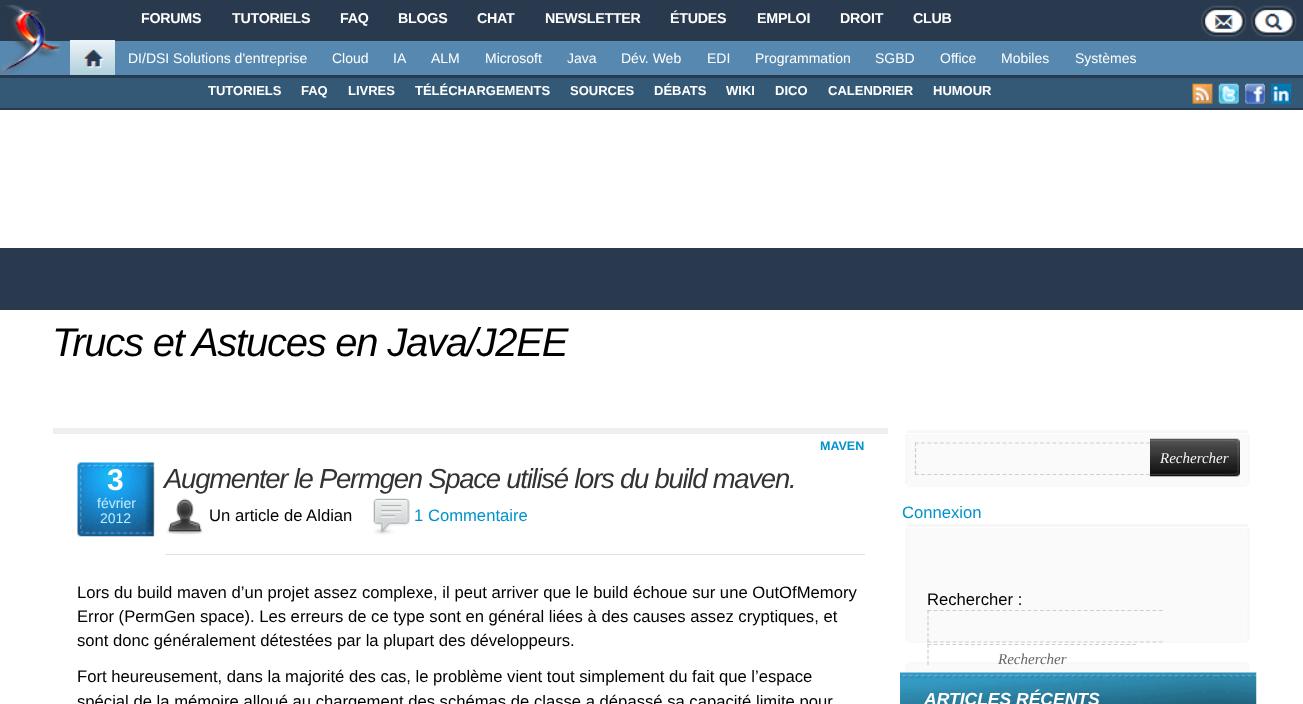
<svg xmlns="http://www.w3.org/2000/svg" width="1303" height="704" viewBox="0 0 1303 704">
  <defs>
    <linearGradient id="g1" gradientUnits="userSpaceOnUse" x1="93" y1="40" x2="93" y2="75"><stop offset="0" stop-color="rgb(234,245,248)"/><stop offset="0.37" stop-color="rgb(216,230,236)"/><stop offset="1" stop-color="rgb(174,209,221)"/></linearGradient>
  </defs>
  <rect width="100%" height="100%" fill="rgb(41,58,78)"/>
  <rect x="0" y="41" width="1303" height="34" fill="rgb(87,137,176)"/>
  <image x="0" y="5" width="60" height="69" href="pic1.png"/>
  <g font-family="Liberation Sans" font-size="14.25" font-weight="bold" letter-spacing="-0.25" fill="rgb(255,255,255)">
    <text x="141" y="23">FORUMS</text>
    <text x="232" y="23">TUTORIELS</text>
    <text x="340" y="23">FAQ</text>
    <text x="398" y="23">BLOGS</text>
    <text x="477" y="23">CHAT</text>
    <text x="545" y="23">NEWSLETTER</text>
    <text x="670" y="23">ÉTUDES</text>
    <text x="757" y="23">EMPLOI</text>
    <text x="840" y="23">DROIT</text>
    <text x="913" y="23">CLUB</text>
  </g>
  <image x="1201" y="5" width="46" height="33" href="pic2.png"/>
  <image x="1251" y="5" width="46" height="33" href="pic3.png"/>
  <rect x="70" y="40" width="45" height="35" fill="url(#g1)"/>
  <image x="83" y="49" width="21" height="19" href="pic4.png"/>
  <g font-family="Liberation Sans" font-size="14" fill="rgb(255,255,255)">
    <text x="128" y="63">DI/DSI Solutions d'entreprise</text>
    <text x="332" y="63">Cloud</text>
    <text x="393" y="63">IA</text>
    <text x="431" y="63">ALM</text>
    <text x="485" y="63">Microsoft</text>
    <text x="567" y="63">Java</text>
    <text x="621" y="63">Dév. Web</text>
    <text x="707" y="63">EDI</text>
    <text x="755" y="63">Programmation</text>
    <text x="875" y="63">SGBD</text>
    <text x="940" y="63">Office</text>
    <text x="1001" y="63">Mobiles</text>
    <text x="1075" y="63">Systèmes</text>
  </g>
  <rect x="0" y="78" width="1303" height="30" fill="rgb(52,89,118)"/>
  <g font-family="Liberation Sans" font-size="13" font-weight="bold" fill="rgb(255,255,255)">
    <text x="208" y="95">TUTORIELS</text>
    <text x="301" y="95">FAQ</text>
    <text x="348" y="95">LIVRES</text>
    <text x="415" y="95">TÉLÉCHARGEMENTS</text>
    <text x="570" y="95">SOURCES</text>
    <text x="654" y="95">DÉBATS</text>
    <text x="726" y="95">WIKI</text>
    <text x="775" y="95">DICO</text>
    <text x="828" y="95">CALENDRIER</text>
    <text x="933" y="95">HUMOUR</text>
  </g>
  <image x="1192" y="83" width="21" height="21" href="pic5.png"/>
  <image x="1218" y="83" width="21" height="21" href="pic6.png"/>
  <image x="1245" y="83" width="20" height="21" href="pic7.png"/>
  <image x="1271" y="83" width="21" height="21" href="pic8.png"/>
  <rect x="0" y="110" width="1303" height="138" fill="rgb(255,255,255)"/>
  <rect x="0" y="310" width="1303" height="394" fill="rgb(255,255,255)"/>
  <text x="52" y="356" font-family="Liberation Sans" font-size="40" font-style="italic" letter-spacing="-1.25" fill="rgb(0,0,0)">Trucs et Astuces en Java/J2EE</text>
  <rect x="53" y="428" width="835" height="6" fill="rgb(238,238,238)"/>
  <text x="820" y="450" font-family="Liberation Sans" font-size="12.5" font-weight="bold" fill="rgb(0,147,202)">MAVEN</text>
  <image x="77" y="462" width="78" height="75" href="pic9.png"/>
  <text x="107" y="490" font-family="Liberation Sans" font-size="30" font-weight="bold" fill="rgb(255,255,255)">3</text>
  <g font-family="Liberation Sans" font-size="14" fill="rgb(197,236,252)">
    <text x="97" y="508">février</text>
    <text x="100" y="523">2012</text>
  </g>
  <text x="164" y="488" font-family="Liberation Sans" font-size="27.5" font-style="italic" letter-spacing="-1.25" fill="rgb(51,51,51)">Augmenter le Permgen Space utilisé lors du build maven.</text>
  <rect x="165" y="554" width="700" height="1" fill="rgb(226,226,226)"/>
  <image x="166" y="498" width="37" height="37" href="pic10.png"/>
  <text x="209" y="521" font-family="Liberation Sans" font-size="16.65" fill="rgb(0,0,0)">Un article de Aldian</text>
  <image x="373" y="498" width="37" height="37" href="pic11.png"/>
  <text x="414" y="521" font-family="Liberation Sans" font-size="16.65" fill="rgb(0,147,202)">1 Commentaire</text>
  <g font-family="Liberation Sans" font-size="16.65" fill="rgb(0,0,0)">
    <text>
      <tspan x="77" y="598">Lors du build maven d’un projet assez complexe, il peut arriver que le build échoue sur une OutOfMemory</tspan>
      <tspan x="77" y="622">Error (PermGen space). Les erreurs de ce type sont en général liées à des causes assez cryptiques, et</tspan>
      <tspan x="77" y="646">sont donc généralement détestées par la plupart des développeurs.</tspan>
    </text>
    <text>
      <tspan x="77" y="682">Fort heureusement, dans la majorité des cas, le problème vient tout simplement du fait que l’espace</tspan>
      <tspan x="77" y="707">spécial de la mémoire alloué au chargement des schémas de classe a dépassé sa capacité limite pour</tspan>
    </text>
  </g>
  <rect x="907" y="430" width="341" height="3" fill="rgb(247,247,247)"/>
  <image x="905" y="434" width="345" height="50" href="pic12.png"/>
  <path d="M915 443H1150" fill="none" stroke="rgb(205,205,205)" stroke-width="1.2" stroke-dasharray="3.75 2.5"/>
  <path d="M915 474.5H1150" fill="none" stroke="rgb(205,205,205)" stroke-width="1.2" stroke-dasharray="3.75 2.5"/>
  <path d="M915.5 442.5V475" fill="none" stroke="rgb(205,205,205)" stroke-width="1.2" stroke-dasharray="3.75 2"/>
  <image x="1150" y="438" width="90" height="39" href="pic13.png"/>
  <text x="1160" y="463" font-family="Liberation Serif" font-size="15" font-style="italic" fill="rgb(245,245,245)">Rechercher</text>
  <image x="907" y="484" width="341" height="3" href="pic14.png"/>
  <text x="902" y="518" font-family="Liberation Sans" font-size="16.65" fill="rgb(0,147,202)">Connexion</text>
  <rect x="907" y="524" width="341" height="3" fill="rgb(247,247,247)"/>
  <image x="905" y="528" width="345" height="112" href="pic15.png"/>
  <text x="927" y="605" font-family="Liberation Sans" font-size="16.65" fill="rgb(0,0,0)">Rechercher :</text>
  <path d="M927.5 610.5H1162.5" fill="none" stroke="rgb(205,205,205)" stroke-width="1.2" stroke-dasharray="3.75 2.5"/>
  <image x="907" y="640" width="341" height="3" href="pic16.png"/>
  <path d="M927.5 642H1162.5" fill="none" stroke="rgb(205,205,205)" stroke-width="1.2" stroke-dasharray="3.75 2.5"/>
  <path d="M928 610V642.5" fill="none" stroke="rgb(205,205,205)" stroke-width="1.2" stroke-dasharray="3.75 2"/>
  <path d="M927.5 644.5H1136" fill="none" stroke="rgb(205,205,205)" stroke-width="1.2" stroke-dasharray="3.75 2.46"/>
  <image x="907" y="662" width="341" height="3" href="pic17.png"/>
  <path d="M928 644V676" fill="none" stroke="rgb(205,205,205)" stroke-width="1.2" stroke-dasharray="3.75 2"/>
  <text x="998" y="664" font-family="Liberation Serif" font-size="15" font-style="italic" fill="rgb(102,102,102)">Rechercher</text>
  <image x="905" y="665" width="345" height="8" href="pic18.png"/>
  <image x="900" y="672" width="357" height="32" href="pic19.png"/>
  <text x="924" y="705" font-family="Liberation Sans" font-size="17.5" font-weight="bold" font-style="italic" fill="rgb(255,255,255)">ARTICLES RÉCENTS</text>
</svg>
